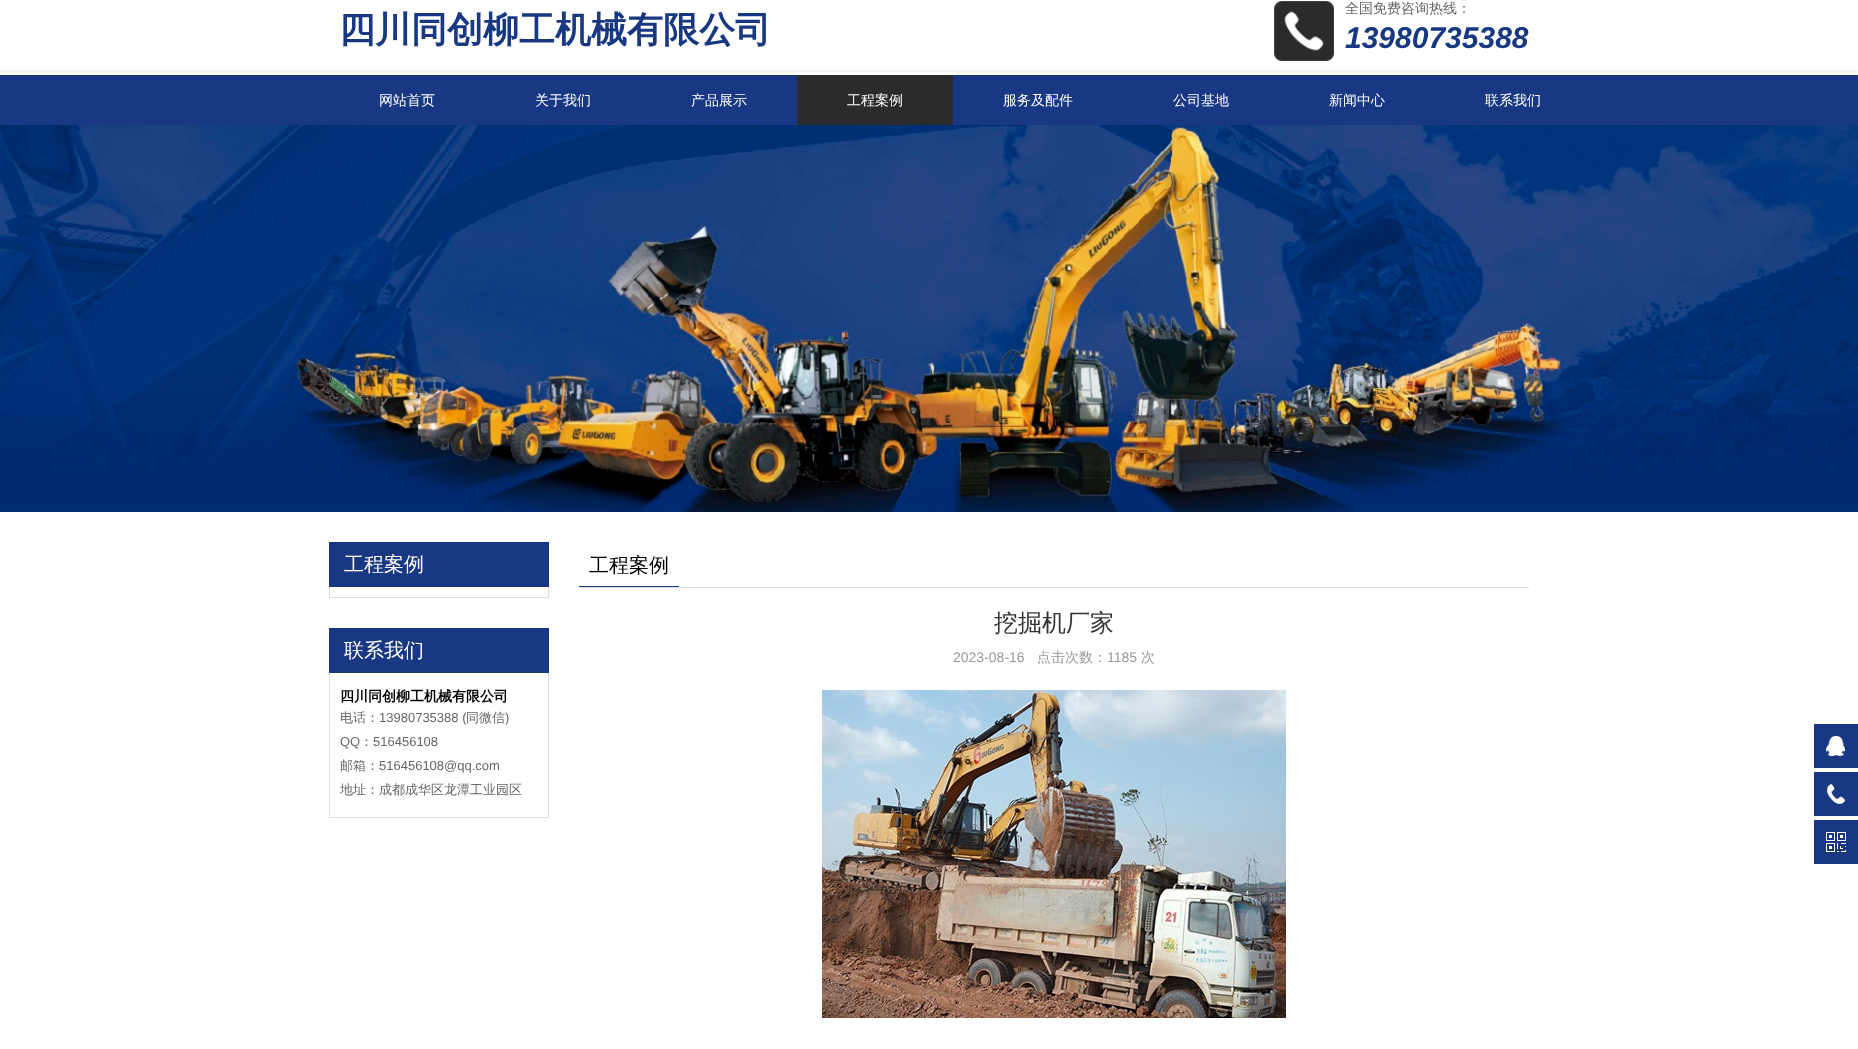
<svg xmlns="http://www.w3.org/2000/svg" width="1858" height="1049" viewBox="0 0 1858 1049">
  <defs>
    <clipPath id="clip1"><rect x="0" y="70" width="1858" height="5"/></clipPath>
  </defs>
  <rect width="100%" height="100%" fill="rgb(255,255,255)"/>
  <rect x="0" y="75" width="1858" height="50" fill="rgb(24,56,131)"/>
  <g clip-path="url(#clip1)">
    <rect x="0" y="2" width="1858" height="70" fill="rgb(238,238,238)" filter="blur(1.5px)"/>
  </g>
  <text x="339" y="42" font-family="WenQuanYi Zen Hei" font-size="36" font-weight="bold" fill="rgb(24,56,131)">四川同创柳工机械有限公司</text>
  <image x="1274" y="1" width="60" height="60" href="pic1.png"/>
  <text x="1345" y="13" font-family="WenQuanYi Zen Hei" font-size="14" font-weight="500" fill="rgb(102,102,102)">全国免费咨询热线：</text>
  <text x="1345" y="48" font-family="Liberation Sans" font-size="30" font-weight="bold" font-style="italic" fill="rgb(24,56,131)">13980735388</text>
  <g font-family="WenQuanYi Zen Hei" font-size="14" font-weight="500" fill="rgb(255,255,255)">
    <text x="379" y="105">网站首页</text>
    <text x="535" y="105">关于我们</text>
    <text x="691" y="105">产品展示</text>
  </g>
  <rect x="797" y="75" width="156" height="50" fill="rgb(43,43,43)"/>
  <g font-family="WenQuanYi Zen Hei" font-size="14" font-weight="500" fill="rgb(255,255,255)">
    <text x="847" y="105">工程案例</text>
    <text x="1003" y="105">服务及配件</text>
    <text x="1173" y="105">公司基地</text>
    <text x="1329" y="105">新闻中心</text>
    <text x="1485" y="105">联系我们</text>
  </g>
  <image x="0" y="125" width="1858" height="387" href="pic2.png"/>
  <rect x="329" y="542" width="220" height="45" fill="rgb(24,56,131)"/>
  <text x="344" y="571" font-family="WenQuanYi Zen Hei" font-size="20" font-weight="500" fill="rgb(255,255,255)">工程案例</text>
  <rect x="548" y="587" width="1" height="11" fill="rgb(221,221,221)"/>
  <rect x="329" y="597" width="220" height="1" fill="rgb(221,221,221)"/>
  <rect x="329" y="587" width="1" height="11" fill="rgb(221,221,221)"/>
  <rect x="329" y="628" width="220" height="45" fill="rgb(24,56,131)"/>
  <text x="344" y="657" font-family="WenQuanYi Zen Hei" font-size="20" font-weight="500" fill="rgb(255,255,255)">联系我们</text>
  <rect x="548" y="673" width="1" height="145" fill="rgb(221,221,221)"/>
  <rect x="329" y="817" width="220" height="1" fill="rgb(221,221,221)"/>
  <rect x="329" y="673" width="1" height="145" fill="rgb(221,221,221)"/>
  <text x="340" y="701" font-family="WenQuanYi Zen Hei" font-size="14" font-weight="bold" fill="rgb(0,0,0)">四川同创柳工机械有限公司</text>
  <text x="340" y="722" font-family="WenQuanYi Zen Hei" font-size="13" font-weight="500" fill="rgb(102,102,102)">电话：</text>
  <text x="379" y="722" font-family="Liberation Sans" font-size="13" fill="rgb(102,102,102)">13980735388 (</text>
  <text x="466" y="722" font-family="WenQuanYi Zen Hei" font-size="13" font-weight="500" fill="rgb(102,102,102)">同微信</text>
  <g font-family="Liberation Sans" font-size="13" fill="rgb(102,102,102)">
    <text x="505" y="722">)</text>
    <text x="340" y="746">QQ</text>
  </g>
  <text x="360" y="746" font-family="WenQuanYi Zen Hei" font-size="13" font-weight="500" fill="rgb(102,102,102)">：</text>
  <text x="373" y="746" font-family="Liberation Sans" font-size="13" fill="rgb(102,102,102)">516456108</text>
  <text x="340" y="770" font-family="WenQuanYi Zen Hei" font-size="13" font-weight="500" fill="rgb(102,102,102)">邮箱：</text>
  <text x="379" y="770" font-family="Liberation Sans" font-size="13" fill="rgb(102,102,102)">516456108@qq.com</text>
  <text x="340" y="794" font-family="WenQuanYi Zen Hei" font-size="13" font-weight="500" fill="rgb(102,102,102)">地址：成都成华区龙潭工业园区</text>
  <rect x="579" y="587" width="950" height="1" fill="rgb(221,221,221)"/>
  <text x="589" y="572" font-family="WenQuanYi Zen Hei" font-size="20" font-weight="500" fill="rgb(0,0,0)">工程案例</text>
  <rect x="579" y="586" width="100" height="1" fill="rgb(24,56,131)"/>
  <text x="994" y="631" font-family="WenQuanYi Zen Hei" font-size="24" font-weight="500" fill="rgb(51,51,51)">挖掘机厂家</text>
  <text x="953" y="662" font-family="Liberation Sans" font-size="14" fill="rgb(153,153,153)">2023-08-16</text>
  <text x="1037" y="662" font-family="WenQuanYi Zen Hei" font-size="14" font-weight="500" fill="rgb(153,153,153)">点击次数：</text>
  <text x="1107" y="662" font-family="Liberation Sans" font-size="14" fill="rgb(153,153,153)">1185</text>
  <text x="1141" y="662" font-family="WenQuanYi Zen Hei" font-size="14" font-weight="500" fill="rgb(153,153,153)">次</text>
  <image x="822" y="690" width="464" height="328" href="pic3.png"/>
  <rect x="1814" y="724" width="44" height="44" fill="rgb(24,56,131)"/>
  <image x="1826" y="736" width="19" height="20" href="pic4.png"/>
  <rect x="1814" y="772" width="44" height="44" fill="rgb(24,56,131)"/>
  <image x="1827" y="784" width="18" height="20" href="pic5.png"/>
  <rect x="1814" y="820" width="44" height="44" fill="rgb(24,56,131)"/>
  <image x="1826" y="832" width="20" height="20" href="pic6.png"/>
</svg>
